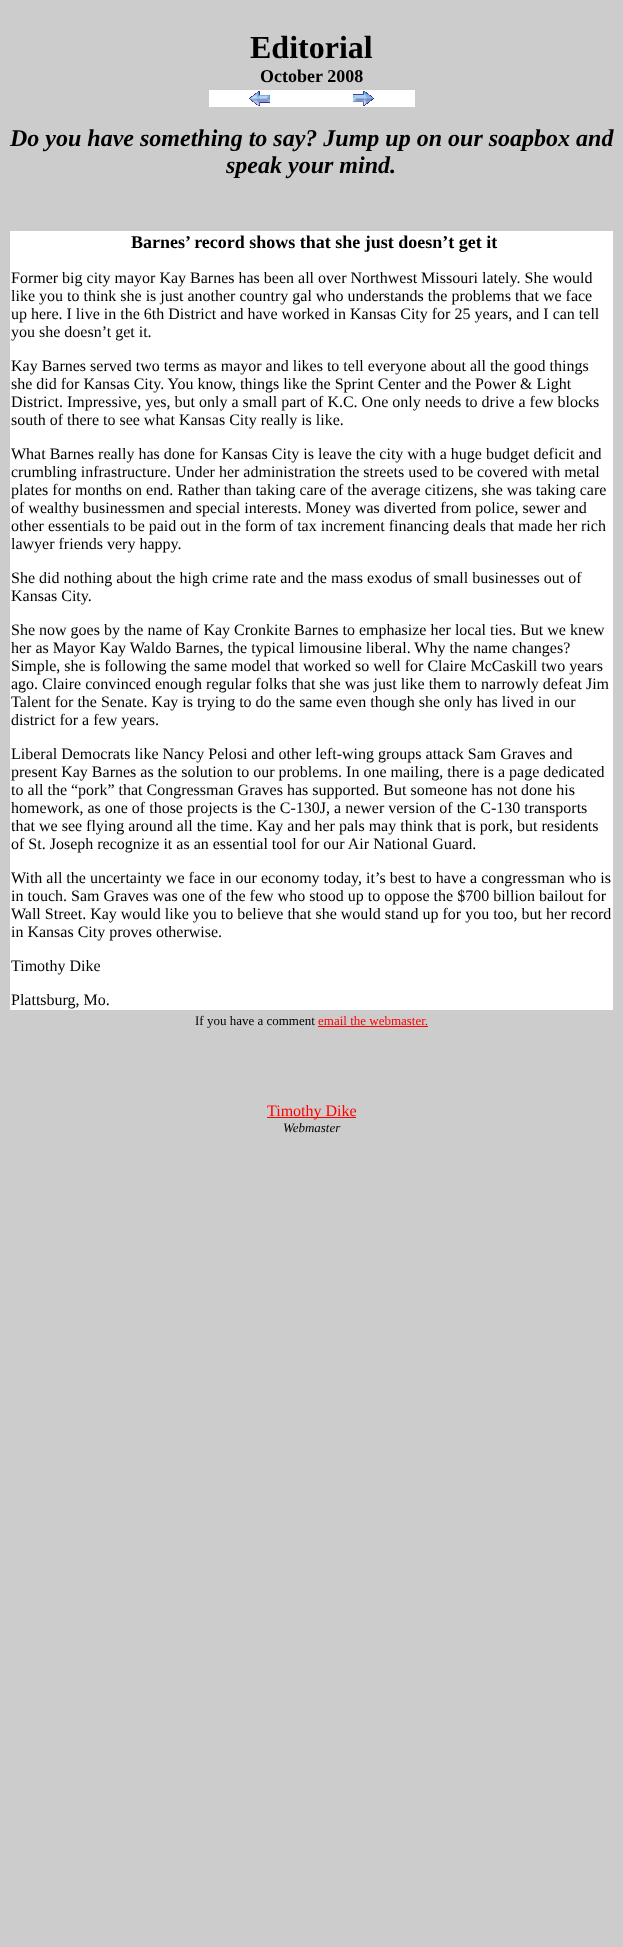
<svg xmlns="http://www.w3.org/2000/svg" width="623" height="1947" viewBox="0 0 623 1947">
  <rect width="100%" height="100%" fill="rgb(204,204,204)"/>
  <text x="250" y="58" font-family="Liberation Serif" font-size="32" font-weight="bold" fill="rgb(0,0,0)">Editorial</text>
  <text x="260" y="82" font-family="Liberation Serif" font-size="18" font-weight="bold" fill="rgb(0,0,0)">October 2008</text>
  <rect x="209" y="90" width="206" height="17" fill="rgb(255,255,255)"/>
  <image x="249" y="91" width="21" height="15" href="pic1.png"/>
  <image x="353" y="91" width="21" height="15" href="pic2.png"/>
  <g font-family="Liberation Serif" font-size="24" font-weight="bold" font-style="italic" fill="rgb(0,0,0)">
    <text x="10" y="146">Do you have something to say? Jump up on our soapbox and</text>
    <text x="226" y="173">speak your mind.</text>
  </g>
  <rect x="10" y="231" width="603" height="779" fill="rgb(255,255,255)"/>
  <text x="131" y="248" font-family="Liberation Serif" font-size="18" font-weight="bold" fill="rgb(0,0,0)">Barnes’ record shows that she just doesn’t get it</text>
  <g font-family="Liberation Serif" font-size="16" fill="rgb(0,0,0)">
    <text>
      <tspan x="11" y="283">Former big city mayor Kay Barnes has been all over Northwest Missouri lately. She would</tspan>
      <tspan x="11" y="301">like you to think she is just another country gal who understands the problems that we face</tspan>
      <tspan x="11" y="319">up here. I live in the 6th District and have worked in Kansas City for 25 years, and I can tell</tspan>
      <tspan x="11" y="337">you she doesn’t get it.</tspan>
    </text>
    <text>
      <tspan x="11" y="371">Kay Barnes served two terms as mayor and likes to tell everyone about all the good things</tspan>
      <tspan x="11" y="389">she did for Kansas City. You know, things like the Sprint Center and the Power &amp; Light</tspan>
      <tspan x="11" y="407">District. Impressive, yes, but only a small part of K.C. One only needs to drive a few blocks</tspan>
      <tspan x="11" y="425">south of there to see what Kansas City really is like.</tspan>
    </text>
    <text>
      <tspan x="11" y="459">What Barnes really has done for Kansas City is leave the city with a huge budget deficit and</tspan>
      <tspan x="11" y="477">crumbling infrastructure. Under her administration the streets used to be covered with metal</tspan>
      <tspan x="11" y="495">plates for months on end. Rather than taking care of the average citizens, she was taking care</tspan>
      <tspan x="11" y="513">of wealthy businessmen and special interests. Money was diverted from police, sewer and</tspan>
      <tspan x="11" y="531">other essentials to be paid out in the form of tax increment financing deals that made her rich</tspan>
      <tspan x="11" y="549">lawyer friends very happy.</tspan>
    </text>
    <text>
      <tspan x="11" y="583">She did nothing about the high crime rate and the mass exodus of small businesses out of</tspan>
      <tspan x="11" y="601">Kansas City.</tspan>
    </text>
    <text>
      <tspan x="11" y="635">She now goes by the name of Kay Cronkite Barnes to emphasize her local ties. But we knew</tspan>
      <tspan x="11" y="653">her as Mayor Kay Waldo Barnes, the typical limousine liberal. Why the name changes?</tspan>
      <tspan x="11" y="671">Simple, she is following the same model that worked so well for Claire McCaskill two years</tspan>
      <tspan x="11" y="689">ago. Claire convinced enough regular folks that she was just like them to narrowly defeat Jim</tspan>
      <tspan x="11" y="707">Talent for the Senate. Kay is trying to do the same even though she only has lived in our</tspan>
      <tspan x="11" y="725">district for a few years.</tspan>
    </text>
    <text>
      <tspan x="11" y="759">Liberal Democrats like Nancy Pelosi and other left-wing groups attack Sam Graves and</tspan>
      <tspan x="11" y="777">present Kay Barnes as the solution to our problems. In one mailing, there is a page dedicated</tspan>
      <tspan x="11" y="795">to all the “pork” that Congressman Graves has supported. But someone has not done his</tspan>
      <tspan x="11" y="813">homework, as one of those projects is the C-130J, a newer version of the C-130 transports</tspan>
      <tspan x="11" y="831">that we see flying around all the time. Kay and her pals may think that is pork, but residents</tspan>
      <tspan x="11" y="849">of St. Joseph recognize it as an essential tool for our Air National Guard.</tspan>
    </text>
    <text>
      <tspan x="11" y="883">With all the uncertainty we face in our economy today, it’s best to have a congressman who is</tspan>
      <tspan x="11" y="901">in touch. Sam Graves was one of the few who stood up to oppose the $700 billion bailout for</tspan>
      <tspan x="11" y="919">Wall Street. Kay would like you to believe that she would stand up for you too, but her record</tspan>
      <tspan x="11" y="937">in Kansas City proves otherwise.</tspan>
    </text>
    <text x="11" y="971">Timothy Dike</text>
    <text x="11" y="1005">Plattsburg, Mo.</text>
  </g>
  <text x="195" y="1025" font-family="Liberation Serif" font-size="13" fill="rgb(0,0,0)">If you have a comment</text>
  <text x="318" y="1025" font-family="Liberation Serif" font-size="13" fill="rgb(255,0,0)">email the webmaster.</text>
  <rect x="318" y="1026" width="110" height="1" fill="rgb(255,0,0)"/>
  <rect x="267" y="1117" width="89" height="1" fill="rgb(255,0,0)"/>
  <text x="267" y="1116" font-family="Liberation Serif" font-size="16" fill="rgb(255,0,0)">Timothy Dike</text>
  <text x="283" y="1132" font-family="Liberation Serif" font-size="13" font-style="italic" fill="rgb(0,0,0)">Webmaster</text>
</svg>
